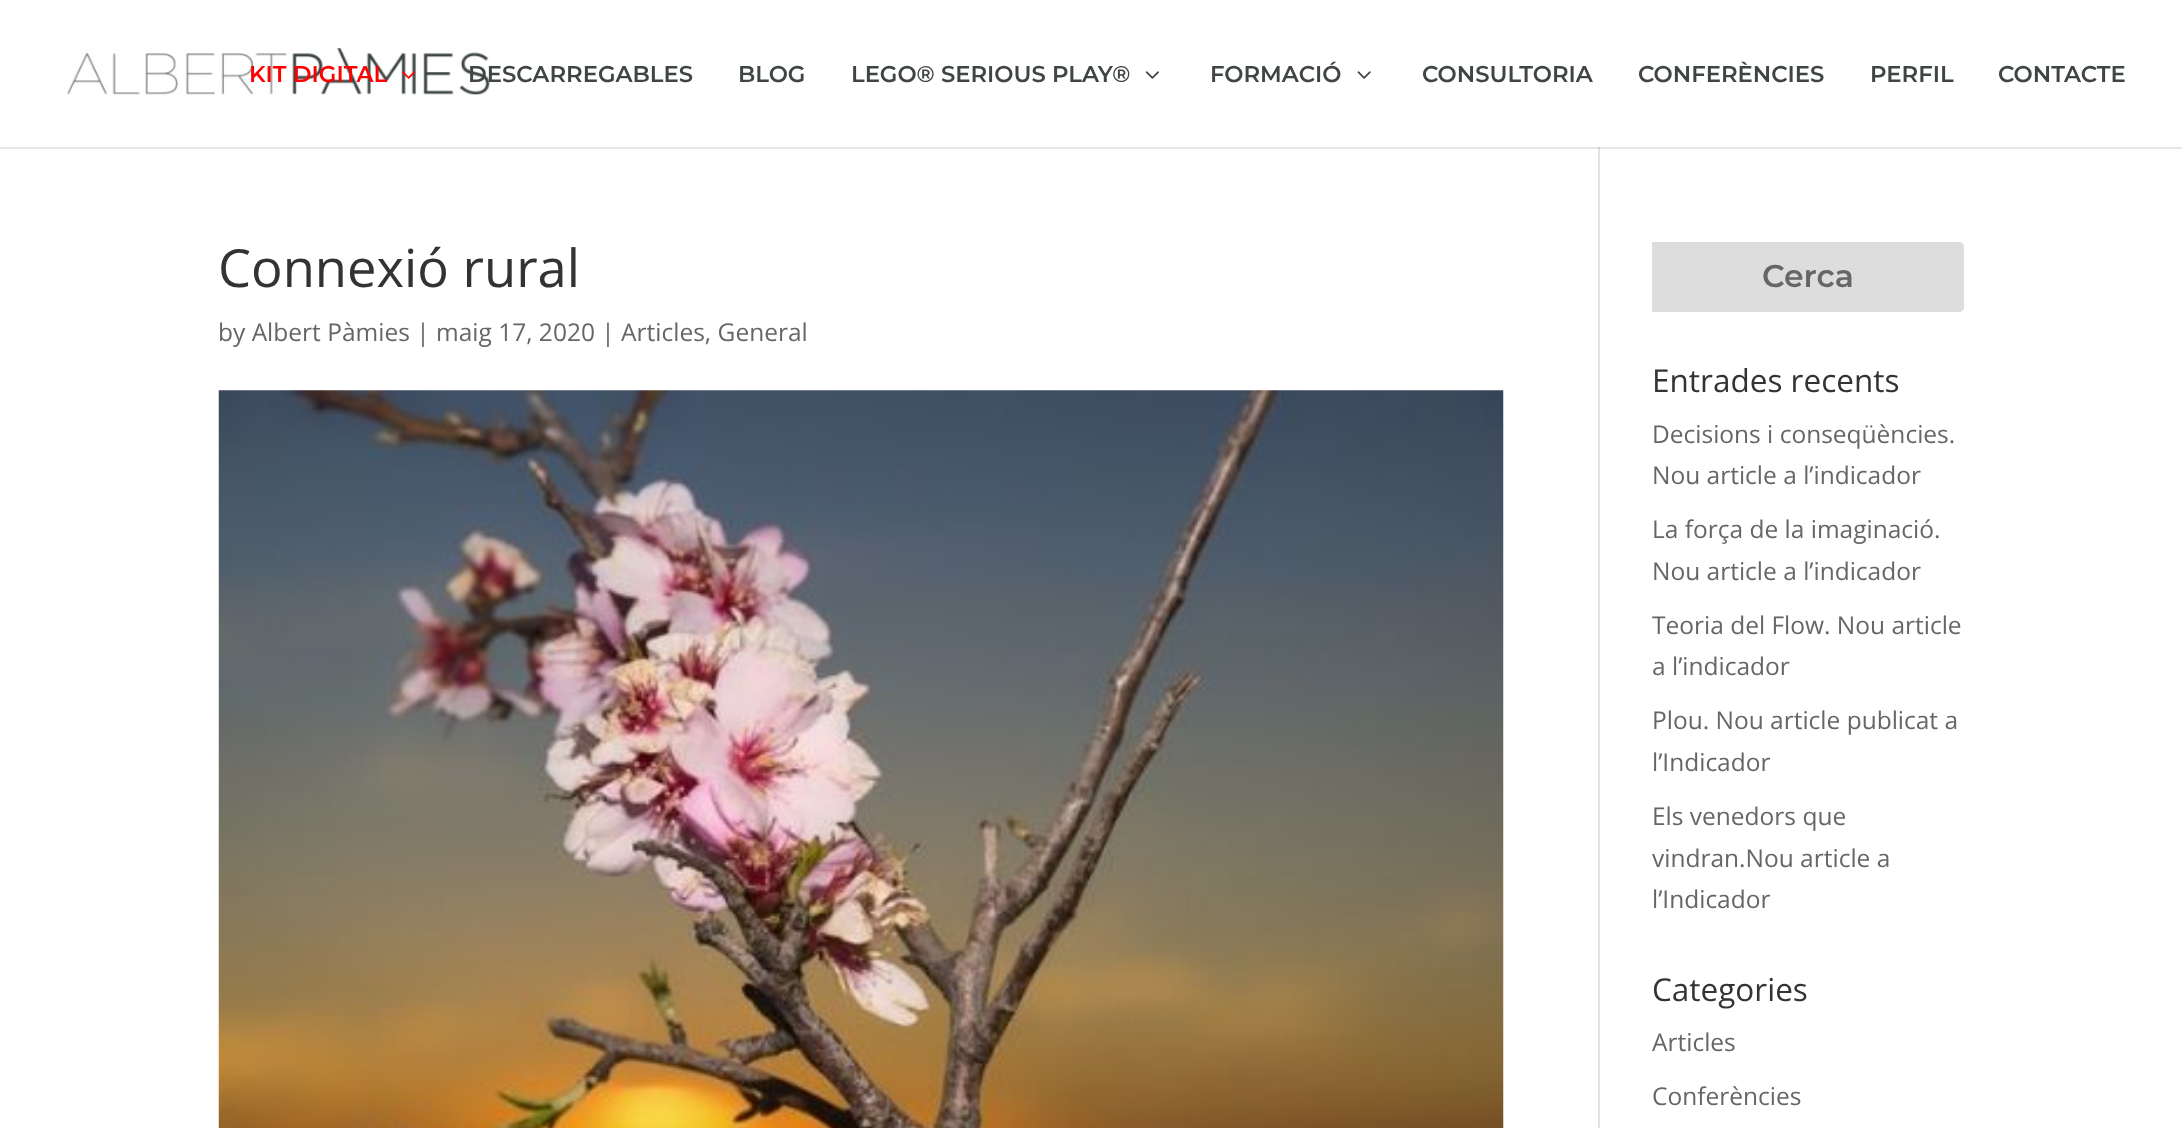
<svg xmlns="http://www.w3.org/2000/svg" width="2182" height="1128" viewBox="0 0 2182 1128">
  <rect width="100%" height="100%" fill="rgb(255,255,255)"/>
  <rect x="0" y="147" width="2182" height="2" fill="rgb(230,230,230)"/>
  <image x="66" y="48" width="424" height="47" href="pic1.png"/>
  <text x="249" y="82" font-family="Montserrat" font-size="22.75" font-weight="600" fill="rgb(255,0,0)">KIT DIGITAL</text>
  <image x="402" y="71" width="14" height="8" href="pic2.png"/>
  <g font-family="Montserrat" font-size="22.75" font-weight="600" fill="rgb(63,68,68)">
    <text x="468" y="82">DESCARREGABLES</text>
    <text x="738" y="82">BLOG</text>
    <text x="851" y="82">LEGO® SERIOUS PLAY®</text>
  </g>
  <image x="1145" y="71" width="14" height="8" href="pic3.png"/>
  <text x="1210" y="82" font-family="Montserrat" font-size="22.75" font-weight="600" fill="rgb(63,68,68)">FORMACIÓ</text>
  <image x="1357" y="71" width="14" height="8" href="pic4.png"/>
  <g font-family="Montserrat" font-size="22.75" font-weight="600" fill="rgb(63,68,68)">
    <text x="1422" y="82">CONSULTORIA</text>
    <text x="1638" y="82">CONFERÈNCIES</text>
    <text x="1870" y="82">PERFIL</text>
    <text x="1998" y="82">CONTACTE</text>
  </g>
  <rect x="1598" y="149" width="2" height="979" fill="rgb(226,226,226)"/>
  <rect x="1598" y="147" width="2" height="2" fill="rgb(203,203,203)"/>
  <text x="218" y="287" font-family="Open Sans" font-size="52.5" fill="rgb(51,51,51)">Connexió rural</text>
  <text x="218" y="341" font-family="Open Sans" font-size="24.5" fill="rgb(102,102,102)">by Albert Pàmies | maig 17, 2020 | Articles, General</text>
  <image x="218" y="390" width="1286" height="738" href="pic5.png"/>
  <rect x="1653" y="243" width="310" height="68" rx="4" fill="none" stroke="rgb(221,221,221)" stroke-width="2"/>
  <path d="M1653 243H1959C1961 243 1963 245 1963 247V307C1963 309 1961 311 1959 311H1653Z" fill="rgb(221,221,221)" stroke="rgb(221,221,221)" stroke-width="2"/>
  <text x="1762" y="287" font-family="Montserrat" font-size="31.5" font-weight="600" fill="rgb(102,102,102)">Cerca</text>
  <text x="1652" y="392" font-family="Open Sans" font-size="31.5" fill="rgb(51,51,51)">Entrades recents</text>
  <g font-family="Open Sans" font-size="24.5" fill="rgb(102,102,102)">
    <text>
      <tspan x="1652" y="443">Decisions i conseqüències.</tspan>
      <tspan x="1652" y="484">Nou article a l’indicador</tspan>
    </text>
    <text>
      <tspan x="1652" y="538">La força de la imaginació.</tspan>
      <tspan x="1652" y="580">Nou article a l’indicador</tspan>
    </text>
    <text>
      <tspan x="1652" y="634">Teoria del Flow. Nou article</tspan>
      <tspan x="1652" y="675">a l’indicador</tspan>
    </text>
    <text>
      <tspan x="1652" y="729">Plou. Nou article publicat a</tspan>
      <tspan x="1652" y="771">l’Indicador</tspan>
    </text>
    <text>
      <tspan x="1652" y="825">Els venedors que</tspan>
      <tspan x="1652" y="867">vindran.Nou article a</tspan>
      <tspan x="1652" y="908">l’Indicador</tspan>
    </text>
  </g>
  <text x="1652" y="1001" font-family="Open Sans" font-size="31.5" fill="rgb(51,51,51)">Categories</text>
  <g font-family="Open Sans" font-size="24.5" fill="rgb(102,102,102)">
    <text x="1652" y="1051">Articles</text>
    <text x="1652" y="1105">Conferències</text>
  </g>
</svg>
